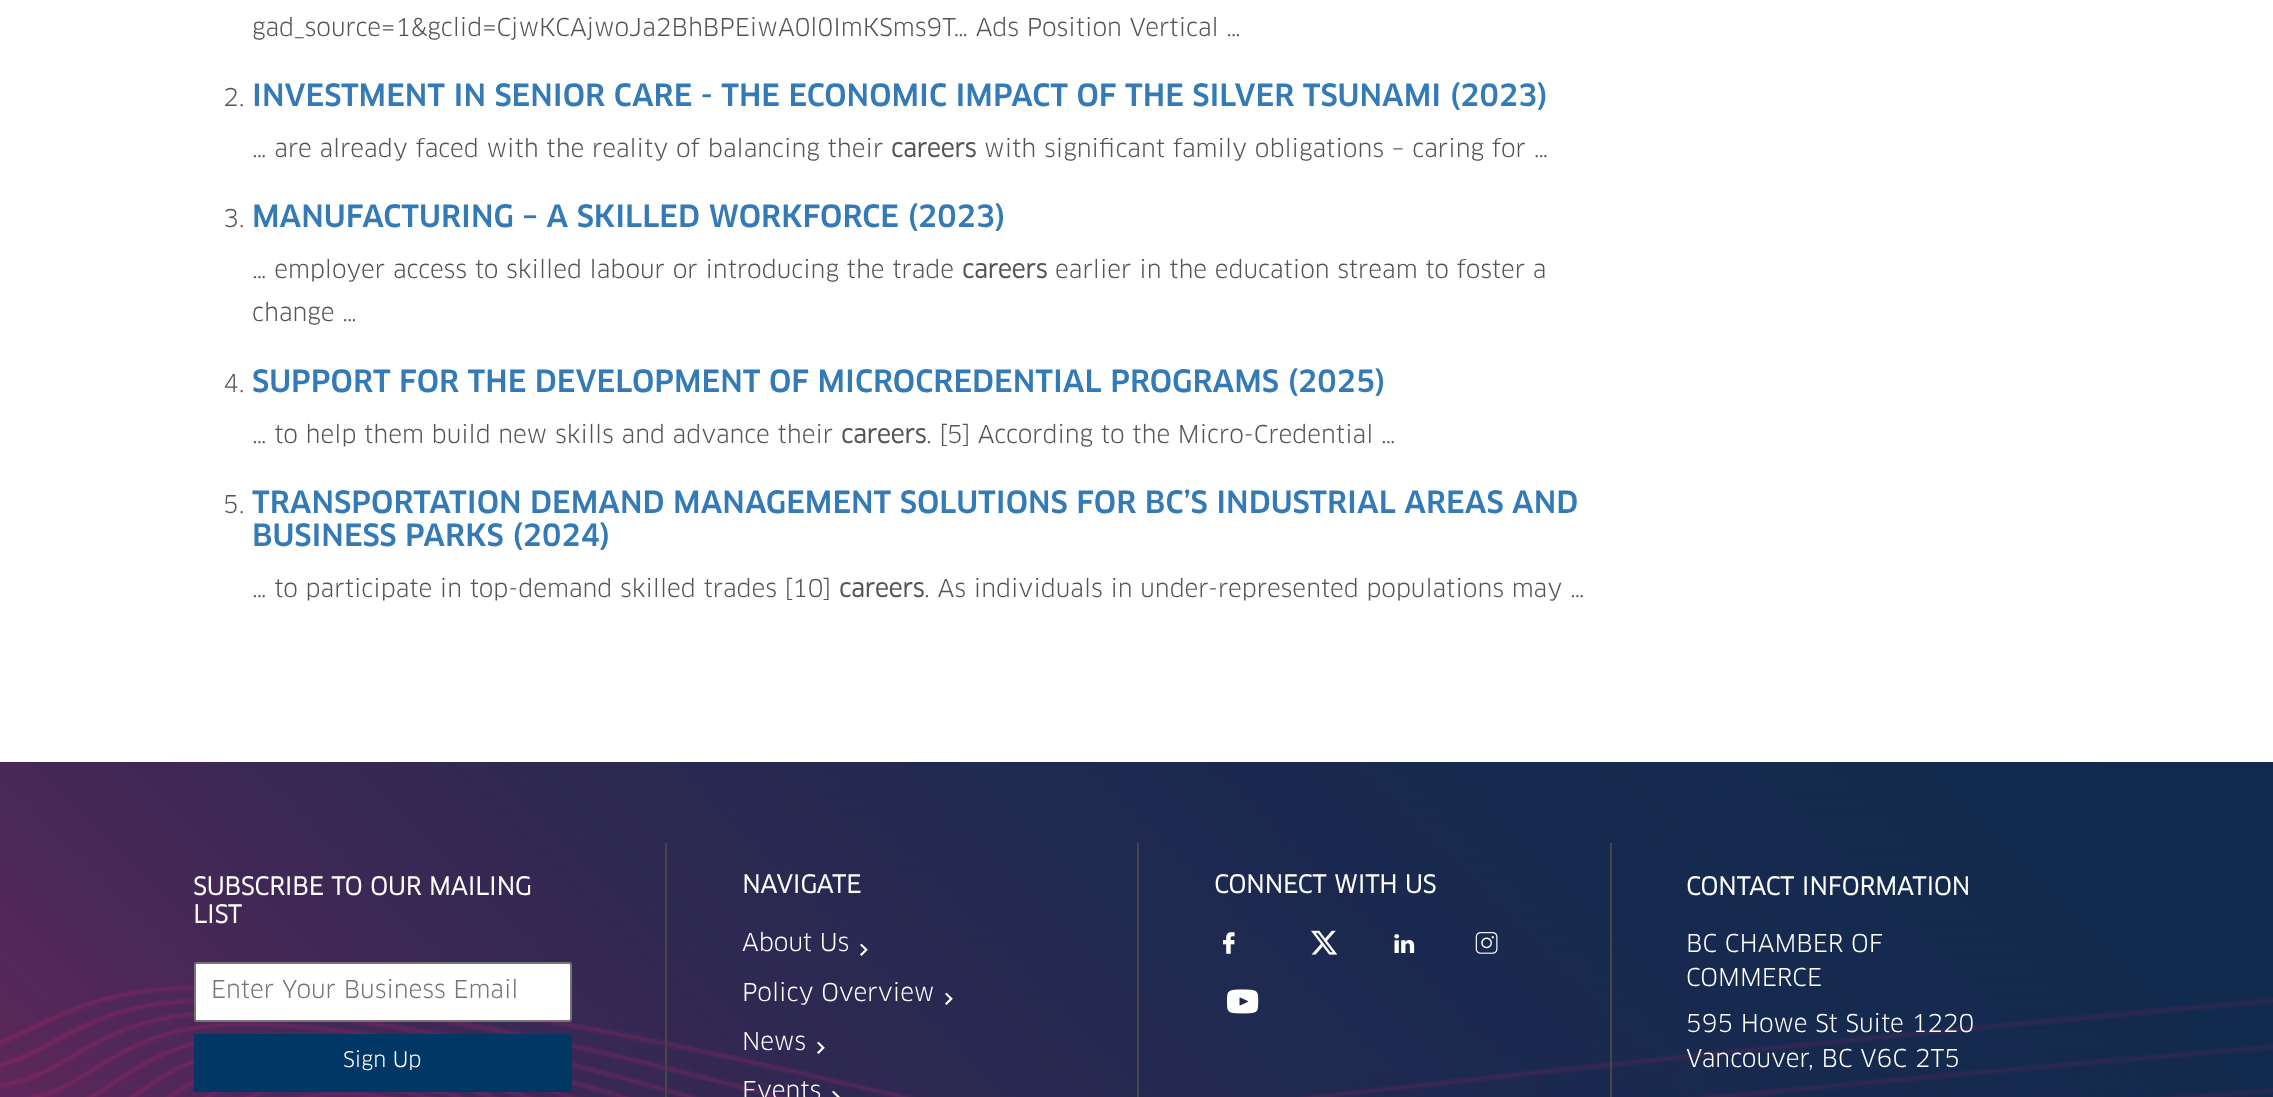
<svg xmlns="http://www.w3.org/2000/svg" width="2273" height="1097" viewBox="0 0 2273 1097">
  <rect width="100%" height="100%" fill="rgb(255,255,255)"/>
  <g font-family="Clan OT" font-size="24" fill="rgb(84,84,84)">
    <text x="252" y="36">gad_source=1&amp;gclid=CjwKCAjwoJa2BhBPEiwA0l0ImKSms9T… Ads Position Vertical …</text>
    <text x="223" y="106">2.</text>
  </g>
  <text x="252" y="106" font-family="Clan OT" font-size="30" font-weight="500" fill="rgb(51,122,183)">INVESTMENT IN SENIOR CARE - THE ECONOMIC IMPACT OF THE SILVER TSUNAMI (2023)</text>
  <text x="252" y="157" font-family="Clan OT" font-size="24" fill="rgb(84,84,84)">… are already faced with the reality of balancing their</text>
  <text x="891" y="157" font-family="Clan OT" font-size="24" font-weight="bold" fill="rgb(84,84,84)">careers</text>
  <g font-family="Clan OT" font-size="24" fill="rgb(84,84,84)">
    <text x="984" y="157">with significant family obligations – caring for …</text>
    <text x="223" y="227">3.</text>
  </g>
  <text x="252" y="227" font-family="Clan OT" font-size="30" font-weight="500" fill="rgb(51,122,183)">MANUFACTURING – A SKILLED WORKFORCE (2023)</text>
  <text x="252" y="278" font-family="Clan OT" font-size="24" fill="rgb(84,84,84)">… employer access to skilled labour or introducing the trade</text>
  <text x="962" y="278" font-family="Clan OT" font-size="24" font-weight="bold" fill="rgb(84,84,84)">careers</text>
  <g font-family="Clan OT" font-size="24" fill="rgb(84,84,84)">
    <text x="1055" y="278">earlier in the education stream to foster a</text>
    <text x="252" y="321">change …</text>
    <text x="223" y="392">4.</text>
  </g>
  <text x="252" y="392" font-family="Clan OT" font-size="30" font-weight="500" fill="rgb(51,122,183)">SUPPORT FOR THE DEVELOPMENT OF MICROCREDENTIAL PROGRAMS (2025)</text>
  <text x="252" y="443" font-family="Clan OT" font-size="24" fill="rgb(84,84,84)">… to help them build new skills and advance their</text>
  <text x="841" y="443" font-family="Clan OT" font-size="24" font-weight="bold" fill="rgb(84,84,84)">careers</text>
  <g font-family="Clan OT" font-size="24" fill="rgb(84,84,84)">
    <text x="926" y="443">. [5] According to the Micro-Credential …</text>
    <text x="223" y="513">5.</text>
  </g>
  <g font-family="Clan OT" font-size="30" font-weight="500" fill="rgb(51,122,183)">
    <text>
      <tspan x="252" y="513">TRANSPORTATION DEMAND MANAGEMENT SOLUTIONS FOR BC’S INDUSTRIAL AREAS AND</tspan>
      <tspan x="252" y="546">BUSINESS PARKS (2024)</tspan>
    </text>
  </g>
  <text x="252" y="597" font-family="Clan OT" font-size="24" fill="rgb(84,84,84)">… to participate in top-demand skilled trades [10]</text>
  <text x="839" y="597" font-family="Clan OT" font-size="24" font-weight="bold" fill="rgb(84,84,84)">careers</text>
  <text x="924" y="597" font-family="Clan OT" font-size="24" fill="rgb(84,84,84)">. As individuals in under-represented populations may …</text>
  <image x="0" y="762" width="2273" height="335" href="pic1.png"/>
  <g font-family="Clan OT" font-size="24" font-weight="bold" fill="rgb(255,255,255)">
    <text>
      <tspan x="193" y="895">SUBSCRIBE TO OUR MAILING</tspan>
      <tspan x="193" y="923">LIST</tspan>
    </text>
  </g>
  <rect x="195" y="963" width="376" height="58" rx="2" fill="rgb(255,255,255)" stroke="rgb(118,118,118)" stroke-width="2"/>
  <text x="211" y="998" font-family="Clan OT" font-size="24" fill="rgb(117,117,117)">Enter Your Business Email</text>
  <rect x="194" y="1034" width="378" height="58" fill="rgb(0,55,100)"/>
  <text x="343" y="1067" font-family="Clan OT" font-size="21" fill="rgb(255,255,255)">Sign Up</text>
  <rect x="665" y="843" width="2" height="254" fill="rgb(70,70,70)"/>
  <text x="742" y="893" font-family="Clan OT" font-size="24" font-weight="bold" fill="rgb(255,255,255)">NAVIGATE</text>
  <text x="742" y="951" font-family="Clan OT" font-size="24" fill="rgb(255,255,255)">About Us</text>
  <text x="875" y="956" transform="rotate(-90 875 956)" font-family="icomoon" font-size="26" fill="rgb(255,255,255)">9</text>
  <text x="742" y="1001" font-family="Clan OT" font-size="24" fill="rgb(255,255,255)">Policy Overview</text>
  <text x="960" y="1005" transform="rotate(-90 960 1005)" font-family="icomoon" font-size="26" fill="rgb(255,255,255)">9</text>
  <text x="742" y="1050" font-family="Clan OT" font-size="24" fill="rgb(255,255,255)">News</text>
  <text x="832" y="1054" transform="rotate(-90 832 1054)" font-family="icomoon" font-size="26" fill="rgb(255,255,255)">9</text>
  <text x="742" y="1099" font-family="Clan OT" font-size="24" fill="rgb(255,255,255)">Events</text>
  <text x="847" y="1103" transform="rotate(-90 847 1103)" font-family="icomoon" font-size="26" fill="rgb(255,255,255)">9</text>
  <rect x="1137" y="843" width="2" height="254" fill="rgb(70,70,70)"/>
  <text x="1214" y="893" font-family="Clan OT" font-size="24" font-weight="bold" fill="rgb(255,255,255)">CONNECT WITH US</text>
  <text x="1223" y="960" font-family="icomoon" font-size="39" fill="rgb(255,255,255)">3</text>
  <image x="1311" y="930" width="27" height="25" href="pic2.png"/>
  <image x="1394" y="934" width="21" height="19" href="pic3.png"/>
  <image x="1475" y="932" width="23" height="22" href="pic4.png"/>
  <image x="1227" y="989" width="32" height="25" href="pic5.png"/>
  <rect x="1610" y="843" width="2" height="254" fill="rgb(70,70,70)"/>
  <text x="1686" y="895" font-family="Clan OT" font-size="24" font-weight="bold" fill="rgb(255,255,255)">CONTACT INFORMATION</text>
  <g font-family="Clan OT" font-size="24" fill="rgb(255,255,255)">
    <text>
      <tspan x="1686" y="952">BC CHAMBER OF</tspan>
      <tspan x="1686" y="986">COMMERCE</tspan>
      <tspan x="1686" y="1032">595 Howe St Suite 1220</tspan>
      <tspan x="1686" y="1067">Vancouver, BC V6C 2T5</tspan>
    </text>
  </g>
</svg>
